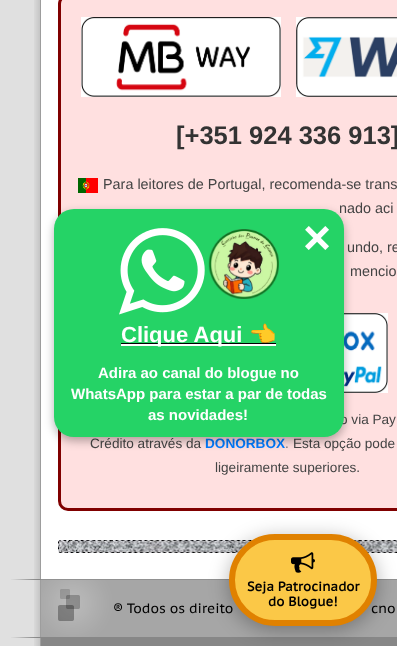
<svg xmlns="http://www.w3.org/2000/svg" width="397" height="646" viewBox="0 0 397 646">
  <rect width="100%" height="100%" fill="rgb(224,224,224)"/>
  <image x="34" y="0" width="363" height="646" href="pic1.png"/>
  <rect x="59.5" y="-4.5" width="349" height="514" rx="8.5" fill="rgb(255,224,224)" stroke="rgb(128,0,0)" stroke-width="3"/>
  <image x="81" y="17" width="200" height="80" href="pic2.png"/>
  <image x="296" y="17" width="101" height="80" href="pic3.png"/>
  <text x="176" y="144" font-family="Liberation Sans" font-size="25.5" font-weight="bold" fill="rgb(51,51,51)">[+351 924 336 913]</text>
  <image x="78" y="178" width="20" height="15" href="pic4.png"/>
  <g font-family="Liberation Sans" font-size="14.4" fill="rgb(68,68,68)">
    <text x="103" y="189">Para leitores de Portugal, recomenda-se trans</text>
    <text x="339" y="213">nado aci</text>
    <text x="347" y="252">undo, re</text>
    <text x="350" y="276">mencio</text>
  </g>
  <image x="344" y="313" width="44" height="80" href="pic5.png"/>
  <g font-family="Liberation Sans" font-size="13.6" fill="rgb(68,68,68)">
    <text x="340" y="424">o via Pay</text>
    <text x="90" y="448">Crédito através da</text>
  </g>
  <text x="205" y="448" font-family="Liberation Sans" font-size="13.6" font-weight="bold" fill="rgb(0,123,255)">DONORBOX</text>
  <text x="285" y="448" font-family="Liberation Sans" font-size="13.6" fill="rgb(119,119,119)">.</text>
  <g font-family="Liberation Sans" font-size="13.6" fill="rgb(68,68,68)">
    <text x="293" y="448">Esta opção pode</text>
    <text x="215" y="472">ligeiramente superiores.</text>
  </g>
  <image x="58" y="540" width="339" height="13" href="pic6.png"/>
  <image x="11" y="637" width="386" height="9" href="pic7.png"/>
  <image x="11" y="579" width="386" height="58" href="pic8.png"/>
  <rect x="54" y="213" width="290" height="228" rx="20" fill="rgba(0,0,0,0.3)" filter="blur(5px)"/>
  <rect x="54" y="209" width="290" height="228" rx="20" fill="rgb(37,211,102)"/>
  <image x="119" y="228" width="86" height="87" href="pic9.png"/>
  <image x="208" y="229" width="71" height="70" href="pic10.png"/>
  <text x="303" y="254" font-family="Liberation Sans" font-size="48" font-weight="bold" fill="rgb(255,255,255)">×</text>
  <rect x="121" y="344" width="155" height="2" fill="rgb(255,255,255)"/>
  <rect x="121" y="343" width="155" height="1" fill="rgb(0,0,0)"/>
  <text x="121" y="342" font-family="Liberation Sans" font-size="22" font-weight="bold" fill="rgb(255,255,255)">Clique Aqui</text>
  <text x="249" y="342" font-family="Noto Color Emoji" font-size="22" font-weight="bold" fill="rgb(255,255,255)">👈</text>
  <g font-family="Liberation Sans" font-size="15" font-weight="bold" fill="rgb(255,255,255)">
    <text x="98" y="378">Adira ao canal do blogue no</text>
    <text x="71" y="399">WhatsApp para estar a par de todas</text>
    <text x="148" y="420">as novidades!</text>
  </g>
  <rect x="229" y="538" width="148" height="92" rx="46" fill="rgba(0,0,0,0.3)" filter="blur(10px)"/>
  <g font-family="PT Sans Caption" font-size="13.6" fill="rgb(0,0,0)">
    <text x="113" y="613">® Todos os direito</text>
    <text x="371" y="613">cno</text>
  </g>
  <rect x="232" y="537" width="142" height="86" rx="43" fill="rgb(251,200,71)" stroke="rgb(224,129,0)" stroke-width="6"/>
  <image x="291" y="552" width="24" height="21" href="pic11.png"/>
  <g font-family="PT Sans Caption" font-size="13" font-weight="bold" fill="rgb(0,0,0)">
    <text x="247" y="591">Seja Patrocinador</text>
    <text x="268" y="606">do Blogue!</text>
  </g>
</svg>
